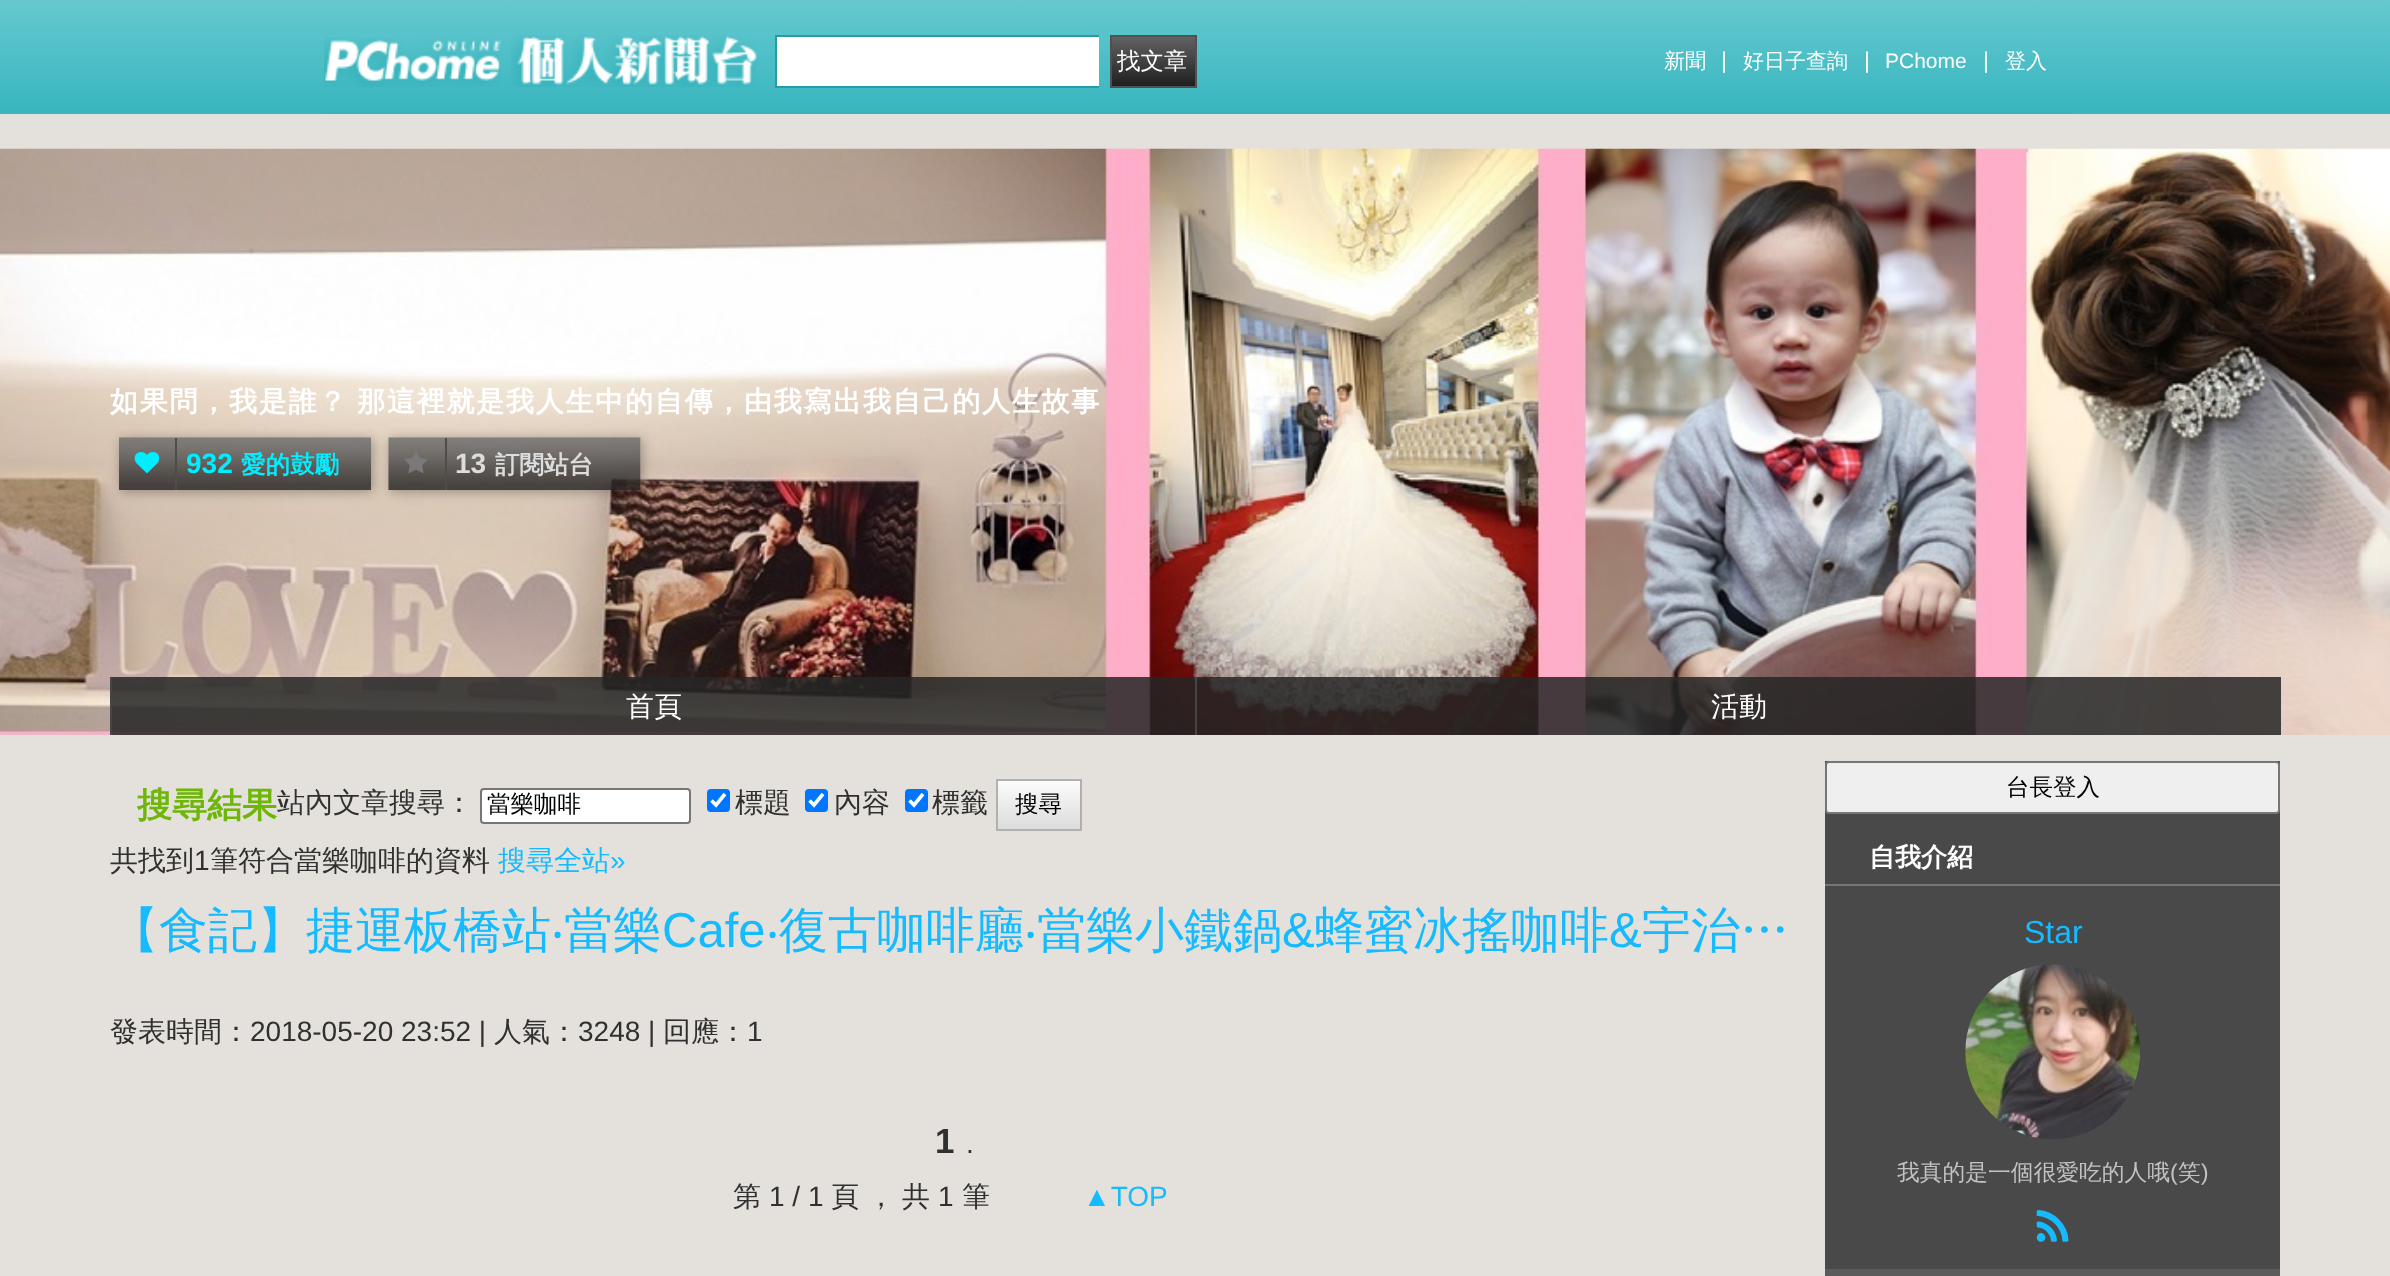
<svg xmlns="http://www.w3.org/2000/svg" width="2390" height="1276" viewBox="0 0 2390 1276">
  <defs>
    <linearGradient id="g1" gradientUnits="userSpaceOnUse" x1="1195" y1="0" x2="1195" y2="114"><stop offset="0" stop-color="rgb(102,201,208)"/><stop offset="1" stop-color="rgb(55,181,190)"/></linearGradient>
    <linearGradient id="g2" gradientUnits="userSpaceOnUse" x1="1153" y1="37" x2="1153" y2="86"><stop offset="0" stop-color="rgb(98,98,98)"/><stop offset="1" stop-color="rgb(31,31,31)"/></linearGradient>
    <clipPath id="clip1"><path d="M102 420H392V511H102ZM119 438H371V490H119Z" clip-rule="evenodd"/></clipPath>
    <clipPath id="clip2"><path d="M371 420H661V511H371ZM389 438H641V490H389Z" clip-rule="evenodd"/></clipPath>
    <linearGradient id="g3" gradientUnits="userSpaceOnUse" x1="1039" y1="781" x2="1039" y2="830"><stop offset="0" stop-color="rgb(252,252,252)"/><stop offset="1" stop-color="rgb(219,219,219)"/></linearGradient>
  </defs>
  <rect width="100%" height="100%" fill="rgb(228,225,220)"/>
  <rect x="0" y="0" width="2390" height="114" fill="url(#g1)"/>
  <rect x="324" y="112" width="1745" height="2" fill="rgb(51,180,189)"/>
  <image x="324" y="37" width="177" height="50" href="pic1.png"/>
  <image x="511" y="35" width="246" height="52" href="pic2.png"/>
  <rect x="777" y="37" width="322" height="49" fill="rgb(255,255,255)"/>
  <rect x="775" y="35" width="324" height="2" fill="rgb(38,156,164)"/>
  <rect x="775" y="86" width="324" height="2" fill="rgb(38,156,164)"/>
  <rect x="775" y="35" width="2" height="53" fill="rgb(38,156,164)"/>
  <rect x="1112" y="37" width="83" height="49" fill="url(#g2)"/>
  <rect x="1111" y="36" width="85" height="51" fill="none" stroke="rgb(80,80,80)" stroke-width="2"/>
  <text x="1117" y="69" font-family="WenQuanYi Zen Hei" font-size="23.5" font-weight="500" fill="rgb(255,255,255)">找文章</text>
  <text x="1664" y="68" font-family="WenQuanYi Zen Hei" font-size="21" font-weight="500" fill="rgb(255,255,255)">新聞</text>
  <text x="1721" y="68" font-family="Liberation Sans" font-size="22.75" fill="rgb(255,255,255)">|</text>
  <text x="1743" y="68" font-family="WenQuanYi Zen Hei" font-size="21" font-weight="500" fill="rgb(255,255,255)">好日子查詢</text>
  <text x="1864" y="68" font-family="Liberation Sans" font-size="22.75" fill="rgb(255,255,255)">|</text>
  <text x="1885" y="68" font-family="Liberation Sans" font-size="21" fill="rgb(255,255,255)">PChome</text>
  <text x="1983" y="68" font-family="Liberation Sans" font-size="22.75" fill="rgb(255,255,255)">|</text>
  <text x="2005" y="68" font-family="WenQuanYi Zen Hei" font-size="21" font-weight="500" fill="rgb(255,255,255)">登入</text>
  <image x="0" y="148" width="2390" height="587" href="pic3.png"/>
  <text x="110" y="411" word-spacing="-1" font-family="WenQuanYi Zen Hei" font-size="28" font-weight="bold" letter-spacing="1.75" fill="rgb(255,255,255)">如果問，我是誰？ 那這裡就是我人生中的自傳，由我寫出我自己的人生故事</text>
  <g clip-path="url(#clip1)">
    <rect x="121" y="439" width="252" height="53" fill="rgba(0,0,0,0.3)" filter="blur(6px)"/>
  </g>
  <image x="119" y="437" width="252" height="53" href="pic4.png"/>
  <rect x="175" y="438" width="2" height="52" fill="rgb(81,75,74)"/>
  <text x="134" y="473" font-family="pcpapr" font-size="28" fill="rgb(0,238,255)">#</text>
  <text x="186" y="473" font-family="Liberation Sans" font-size="28" font-weight="bold" fill="rgb(0,238,255)">932</text>
  <text x="241" y="473" font-family="WenQuanYi Zen Hei" font-size="24.5" font-weight="bold" fill="rgb(0,238,255)">愛的鼓勵</text>
  <g clip-path="url(#clip2)">
    <rect x="390" y="439" width="252" height="53" fill="rgba(0,0,0,0.3)" filter="blur(6px)"/>
  </g>
  <image x="388" y="437" width="253" height="53" href="pic5.png"/>
  <rect x="445" y="438" width="2" height="52" fill="rgb(81,75,74)"/>
  <text x="403" y="473" font-family="pcpapr" font-size="28" fill="rgb(121,121,121)">$</text>
  <text x="455" y="473" font-family="Liberation Sans" font-size="28" font-weight="bold" fill="rgb(221,221,221)">13</text>
  <text x="495" y="473" font-family="WenQuanYi Zen Hei" font-size="24.5" font-weight="bold" fill="rgb(221,221,221)">訂閱站台</text>
  <rect x="112" y="677" width="2169" height="58" fill="rgba(38,38,38,0.85)"/>
  <rect x="110" y="677" width="2" height="58" fill="rgb(69,69,69)"/>
  <text x="626" y="716" font-family="WenQuanYi Zen Hei" font-size="28" font-weight="500" fill="rgb(255,255,255)">首頁</text>
  <rect x="1195" y="677" width="2" height="58" fill="rgb(69,69,69)"/>
  <text x="1711" y="716" font-family="WenQuanYi Zen Hei" font-size="28" font-weight="500" fill="rgb(255,255,255)">活動</text>
  <text x="137" y="817" font-family="WenQuanYi Zen Hei" font-size="35" font-weight="bold" fill="rgb(110,182,7)">搜尋結果</text>
  <text x="277" y="812" font-family="WenQuanYi Zen Hei" font-size="28" font-weight="500" fill="rgb(48,48,48)">站內文章搜尋：</text>
  <rect x="481" y="789" width="209" height="34" rx="3" fill="rgb(255,255,255)" stroke="rgb(118,118,118)" stroke-width="2"/>
  <text x="487" y="812" font-family="WenQuanYi Zen Hei" font-size="23.5" font-weight="500" fill="rgb(0,0,0)">當樂咖啡</text>
  <rect x="707" y="789" width="23" height="23" rx="4" fill="rgb(0,117,255)"/>
  <path d="M711.5 800.5L716 805L725 794" fill="none" stroke="rgb(255,255,255)" stroke-width="3.6"/>
  <text x="735" y="812" font-family="WenQuanYi Zen Hei" font-size="28" font-weight="500" fill="rgb(48,48,48)">標題</text>
  <rect x="805" y="789" width="23" height="23" rx="4" fill="rgb(0,117,255)"/>
  <path d="M809.5 800.5L814 805L823 794" fill="none" stroke="rgb(255,255,255)" stroke-width="3.6"/>
  <text x="834" y="812" font-family="WenQuanYi Zen Hei" font-size="28" font-weight="500" fill="rgb(48,48,48)">內容</text>
  <rect x="905" y="789" width="23" height="23" rx="4" fill="rgb(0,117,255)"/>
  <path d="M909.5 800.5L914 805L923 794" fill="none" stroke="rgb(255,255,255)" stroke-width="3.6"/>
  <text x="932" y="812" font-family="WenQuanYi Zen Hei" font-size="28" font-weight="500" fill="rgb(48,48,48)">標籤</text>
  <rect x="998" y="781" width="82" height="48" fill="url(#g3)"/>
  <rect x="997" y="780" width="84" height="50" fill="none" stroke="rgb(177,176,176)" stroke-width="2"/>
  <text x="1015" y="812" font-family="WenQuanYi Zen Hei" font-size="23.5" font-weight="500" fill="rgb(0,0,0)">搜尋</text>
  <text x="110" y="870" font-family="WenQuanYi Zen Hei" font-size="28" font-weight="500" fill="rgb(48,48,48)">共找到</text>
  <text x="194" y="870" font-family="Liberation Sans" font-size="28" fill="rgb(48,48,48)">1</text>
  <text x="210" y="870" font-family="WenQuanYi Zen Hei" font-size="28" font-weight="500" fill="rgb(48,48,48)">筆符合當樂咖啡的資料</text>
  <text x="498" y="870" font-family="WenQuanYi Zen Hei" font-size="28" font-weight="500" fill="rgb(21,186,255)">搜尋全站</text>
  <text x="610" y="870" font-family="Liberation Sans" font-size="28" fill="rgb(21,186,255)">»</text>
  <text x="110" y="947" font-family="WenQuanYi Zen Hei" font-size="49" font-weight="500" fill="rgb(21,186,255)">【食記】捷運板橋站</text>
  <text x="551" y="947" font-family="Noto Sans" font-size="49" fill="rgb(21,186,255)">‧</text>
  <text x="564" y="947" font-family="WenQuanYi Zen Hei" font-size="49" font-weight="500" fill="rgb(21,186,255)">當樂</text>
  <text x="662" y="947" font-family="Liberation Sans" font-size="49" fill="rgb(21,186,255)">Cafe</text>
  <text x="766" y="947" font-family="Noto Sans" font-size="49" fill="rgb(21,186,255)">‧</text>
  <text x="779" y="947" font-family="WenQuanYi Zen Hei" font-size="49" font-weight="500" fill="rgb(21,186,255)">復古咖啡廳</text>
  <text x="1024" y="947" font-family="Noto Sans" font-size="49" fill="rgb(21,186,255)">‧</text>
  <text x="1037" y="947" font-family="WenQuanYi Zen Hei" font-size="49" font-weight="500" fill="rgb(21,186,255)">當樂小鐵鍋</text>
  <text x="1282" y="947" font-family="Liberation Sans" font-size="49" fill="rgb(21,186,255)">&amp;</text>
  <text x="1315" y="947" font-family="WenQuanYi Zen Hei" font-size="49" font-weight="500" fill="rgb(21,186,255)">蜂蜜冰搖咖啡</text>
  <text x="1609" y="947" font-family="Liberation Sans" font-size="49" fill="rgb(21,186,255)">&amp;</text>
  <text x="1642" y="947" font-family="WenQuanYi Zen Hei" font-size="49" font-weight="500" fill="rgb(21,186,255)">宇治…</text>
  <text x="110" y="1041" font-family="WenQuanYi Zen Hei" font-size="28" font-weight="500" fill="rgb(48,48,48)">發表時間：</text>
  <text x="250" y="1041" font-family="Liberation Sans" font-size="28" fill="rgb(48,48,48)">2018-05-20 23:52 |</text>
  <text x="494" y="1041" font-family="WenQuanYi Zen Hei" font-size="28" font-weight="500" fill="rgb(48,48,48)">人氣：</text>
  <text x="578" y="1041" font-family="Liberation Sans" font-size="28" fill="rgb(48,48,48)">3248 |</text>
  <text x="663" y="1041" font-family="WenQuanYi Zen Hei" font-size="28" font-weight="500" fill="rgb(48,48,48)">回應：</text>
  <text x="747" y="1041" font-family="Liberation Sans" font-size="28" fill="rgb(48,48,48)">1</text>
  <text x="935" y="1153" font-family="Liberation Sans" font-size="35" font-weight="bold" letter-spacing="4" fill="rgb(48,48,48)">1</text>
  <text x="966" y="1153" font-family="Liberation Sans" font-size="28" fill="rgb(48,48,48)">.</text>
  <text x="733" y="1206" font-family="WenQuanYi Zen Hei" font-size="28" font-weight="500" fill="rgb(48,48,48)">第</text>
  <text x="769" y="1206" font-family="Liberation Sans" font-size="28" fill="rgb(48,48,48)">1 / 1</text>
  <g font-family="WenQuanYi Zen Hei" font-size="28" font-weight="500" fill="rgb(48,48,48)">
    <text x="831" y="1206">頁</text>
    <text x="867" y="1206">，</text>
    <text x="902" y="1206">共</text>
  </g>
  <text x="938" y="1206" font-family="Liberation Sans" font-size="28" fill="rgb(48,48,48)">1</text>
  <text x="962" y="1206" font-family="WenQuanYi Zen Hei" font-size="28" font-weight="500" fill="rgb(48,48,48)">筆</text>
  <text x="1083" y="1206" font-family="Liberation Sans" font-size="28" fill="rgb(21,186,255)">▲TOP</text>
  <rect x="1825" y="761" width="455" height="508" fill="rgb(73,73,73)"/>
  <rect x="1826" y="762" width="453" height="51" rx="3" fill="rgb(239,239,239)" stroke="rgb(118,118,118)" stroke-width="2"/>
  <text x="2006" y="795" font-family="WenQuanYi Zen Hei" font-size="23.5" font-weight="500" fill="rgb(0,0,0)">台長登入</text>
  <rect x="1825" y="884" width="455" height="2" fill="rgb(117,117,117)"/>
  <text x="1869" y="866" font-family="WenQuanYi Zen Hei" font-size="26" font-weight="bold" fill="rgb(255,255,255)">自我介紹</text>
  <text x="2024" y="943" font-family="Liberation Sans" font-size="32" fill="rgb(21,186,255)">Star</text>
  <image x="1965" y="964" width="175" height="175" href="pic6.png"/>
  <text x="1897" y="1180" font-family="WenQuanYi Zen Hei" font-size="22.75" font-weight="500" fill="rgb(195,194,194)">我真的是一個很愛吃的人哦</text>
  <text x="2170" y="1180" font-family="Liberation Sans" font-size="22.75" fill="rgb(195,194,194)">(</text>
  <text x="2178" y="1180" font-family="WenQuanYi Zen Hei" font-size="22.75" font-weight="500" fill="rgb(195,194,194)">笑</text>
  <text x="2201" y="1180" font-family="Liberation Sans" font-size="22.75" fill="rgb(195,194,194)">)</text>
  <text x="2034" y="1241" font-family="pcpapr" font-size="40" fill="rgb(21,186,255)">)</text>
  <rect x="1825" y="1269" width="455" height="7" fill="rgb(91,91,91)"/>
</svg>
